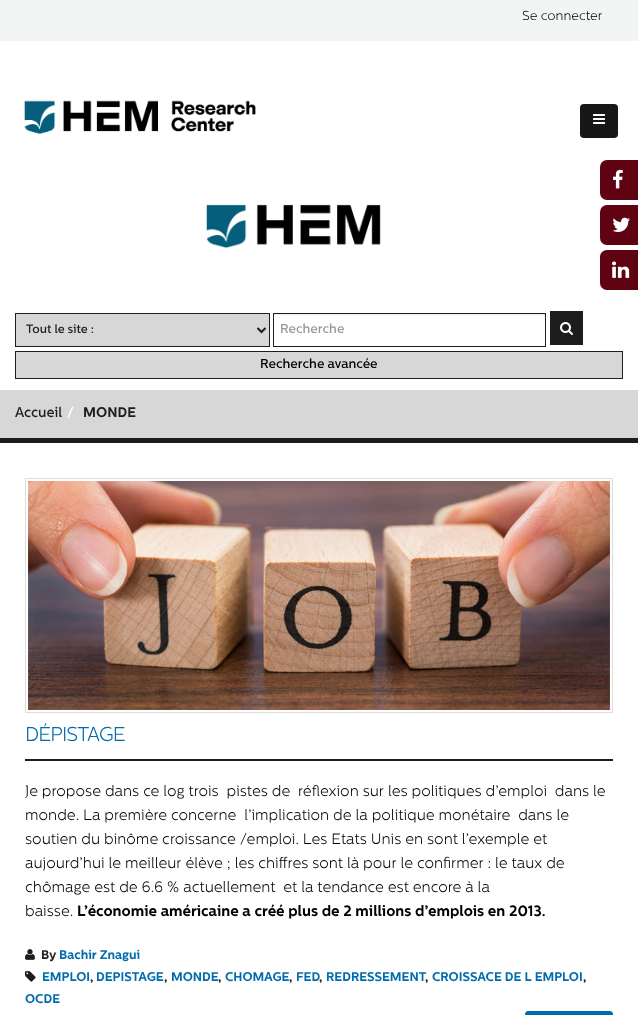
<svg xmlns="http://www.w3.org/2000/svg" width="638" height="1015" viewBox="0 0 638 1015">
  <rect width="100%" height="100%" fill="rgb(255,255,255)"/>
  <rect x="0" y="0" width="638" height="41" fill="rgb(243,244,244)"/>
  <text x="522" y="20" font-family="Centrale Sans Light" font-size="13" font-weight="300" fill="rgb(0,0,0)">Se connecter</text>
  <rect x="580" y="104" width="38" height="34" rx="4" fill="rgb(23,23,23)"/>
  <image x="593" y="114" width="12" height="10" href="pic1.png"/>
  <image x="24" y="100" width="232" height="35" href="pic2.png"/>
  <image x="206" y="204" width="175" height="45" href="pic3.png"/>
  <rect x="550" y="311" width="33" height="34" fill="rgb(29,29,27)"/>
  <rect x="15.5" y="313.5" width="254" height="33" fill="rgb(215,215,215)" stroke="rgb(29,29,27)"/>
  <path d="M257.5 328L261.5 332L265.5 328" fill="none" stroke="rgb(29,29,27)" stroke-width="2"/>
  <text x="26" y="333" font-family="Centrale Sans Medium" font-size="12" font-weight="500" fill="rgb(29,29,27)">Tout le site :</text>
  <rect x="274" y="314" width="271" height="1" fill="rgb(236,236,236)"/>
  <rect x="273.5" y="313.5" width="272" height="33" fill="none" stroke="rgb(29,29,27)"/>
  <text x="280" y="333" font-family="Centrale Sans Medium" font-size="13" font-weight="500" fill="rgb(153,153,153)">Recherche</text>
  <image x="560" y="322" width="13" height="13" href="pic4.png"/>
  <rect x="15.5" y="351.5" width="607" height="27" fill="rgb(215,215,215)" stroke="rgb(29,29,27)"/>
  <text x="260" y="368" font-family="Centrale Sans Medium" font-size="13" font-weight="500" fill="rgb(0,0,0)">Recherche avancée</text>
  <rect x="600" y="160" width="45" height="40" rx="7" fill="rgb(95,3,19)"/>
  <image x="613" y="169" width="10" height="20" href="pic5.png"/>
  <rect x="600" y="205" width="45" height="40" rx="7" fill="rgb(95,3,19)"/>
  <image x="612" y="217" width="18" height="15" href="pic6.png"/>
  <rect x="600" y="250" width="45" height="40" rx="7" fill="rgb(95,3,19)"/>
  <image x="612" y="261" width="18" height="17" href="pic7.png"/>
  <rect x="0" y="390" width="638" height="48" fill="rgb(215,215,215)"/>
  <rect x="0" y="438" width="638" height="5" fill="rgb(29,29,27)"/>
  <text x="15" y="417" font-family="Centrale Sans Medium" font-size="14" font-weight="500" fill="rgb(29,29,27)">Accueil</text>
  <text x="67" y="417" font-family="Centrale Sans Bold" font-size="14" font-weight="bold" fill="rgb(255,255,255)">/</text>
  <text x="83" y="417" font-family="Centrale Sans Bold" font-size="14" font-weight="bold" fill="rgb(29,29,27)">MONDE</text>
  <rect x="25.5" y="478.5" width="587" height="234" fill="none" stroke="rgb(221,221,221)"/>
  <image x="28" y="481" width="582" height="229" href="pic8.png"/>
  <rect x="25" y="759" width="588" height="2" fill="rgb(29,29,27)"/>
  <text x="25" y="741" font-family="Centrale Sans Light" font-size="20" font-weight="300" letter-spacing="-1" fill="rgb(0,107,173)">DÉPISTAGE</text>
  <g font-family="Centrale Sans Light" font-size="15" font-weight="300" fill="rgb(0,0,0)">
    <text xml:space="preserve"><tspan x="25" y="796">Je propose dans ce log trois  pistes de  réflexion sur les politiques d’emploi  dans le</tspan><tspan x="25" y="820">monde. La première concerne  l’implication de la politique monétaire  dans le</tspan><tspan x="25" y="844">soutien du binôme croissance /emploi. Les Etats Unis en sont l’exemple et</tspan><tspan x="25" y="868">aujourd’hui le meilleur élève ; les chiffres sont là pour le confirmer : le taux de</tspan><tspan x="25" y="892">chômage est de 6.6 % actuellement  et la tendance est encore à la</tspan><tspan x="25" y="916">baisse.</tspan></text>
  </g>
  <text x="77" y="916" font-family="Centrale Sans Bold" font-size="15" font-weight="bold" fill="rgb(0,0,0)">L’économie américaine a créé plus de 2 millions d’emplois en 2013.</text>
  <image x="25" y="949" width="10" height="11" href="pic9.png"/>
  <text x="41" y="959" font-family="Centrale Sans Bold" font-size="12.6" font-weight="bold" fill="rgb(29,29,27)">By</text>
  <text x="59" y="959" font-family="Centrale Sans Bold" font-size="12.6" font-weight="bold" fill="rgb(0,107,173)">Bachir Znagui</text>
  <image x="25" y="971" width="11" height="11" href="pic10.png"/>
  <text x="42" y="981" font-family="Centrale Sans Bold" font-size="12.6" font-weight="bold" fill="rgb(0,107,173)">EMPLOI</text>
  <text x="90" y="981" font-family="Centrale Sans Bold" font-size="12.6" font-weight="bold" fill="rgb(29,29,27)">,</text>
  <text x="96" y="981" font-family="Centrale Sans Bold" font-size="12.6" font-weight="bold" fill="rgb(0,107,173)">DEPISTAGE</text>
  <text x="164" y="981" font-family="Centrale Sans Bold" font-size="12.6" font-weight="bold" fill="rgb(29,29,27)">,</text>
  <text x="171" y="981" font-family="Centrale Sans Bold" font-size="12.6" font-weight="bold" fill="rgb(0,107,173)">MONDE</text>
  <text x="218" y="981" font-family="Centrale Sans Bold" font-size="12.6" font-weight="bold" fill="rgb(29,29,27)">,</text>
  <text x="225" y="981" font-family="Centrale Sans Bold" font-size="12.6" font-weight="bold" fill="rgb(0,107,173)">CHOMAGE</text>
  <text x="289" y="981" font-family="Centrale Sans Bold" font-size="12.6" font-weight="bold" fill="rgb(29,29,27)">,</text>
  <text x="296" y="981" font-family="Centrale Sans Bold" font-size="12.6" font-weight="bold" fill="rgb(0,107,173)">FED</text>
  <text x="319" y="981" font-family="Centrale Sans Bold" font-size="12.6" font-weight="bold" fill="rgb(29,29,27)">,</text>
  <text x="326" y="981" font-family="Centrale Sans Bold" font-size="12.6" font-weight="bold" fill="rgb(0,107,173)">REDRESSEMENT</text>
  <text x="425" y="981" font-family="Centrale Sans Bold" font-size="12.6" font-weight="bold" fill="rgb(29,29,27)">,</text>
  <text x="432" y="981" font-family="Centrale Sans Bold" font-size="12.6" font-weight="bold" fill="rgb(0,107,173)">CROISSACE DE L EMPLOI</text>
  <text x="583" y="981" font-family="Centrale Sans Bold" font-size="12.6" font-weight="bold" fill="rgb(29,29,27)">,</text>
  <text x="25" y="1003" font-family="Centrale Sans Bold" font-size="12.6" font-weight="bold" fill="rgb(0,107,173)">OCDE</text>
  <rect x="525.5" y="1011.5" width="87" height="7" rx="2.5" fill="rgb(0,107,173)" stroke="rgb(0,107,173)"/>
</svg>
